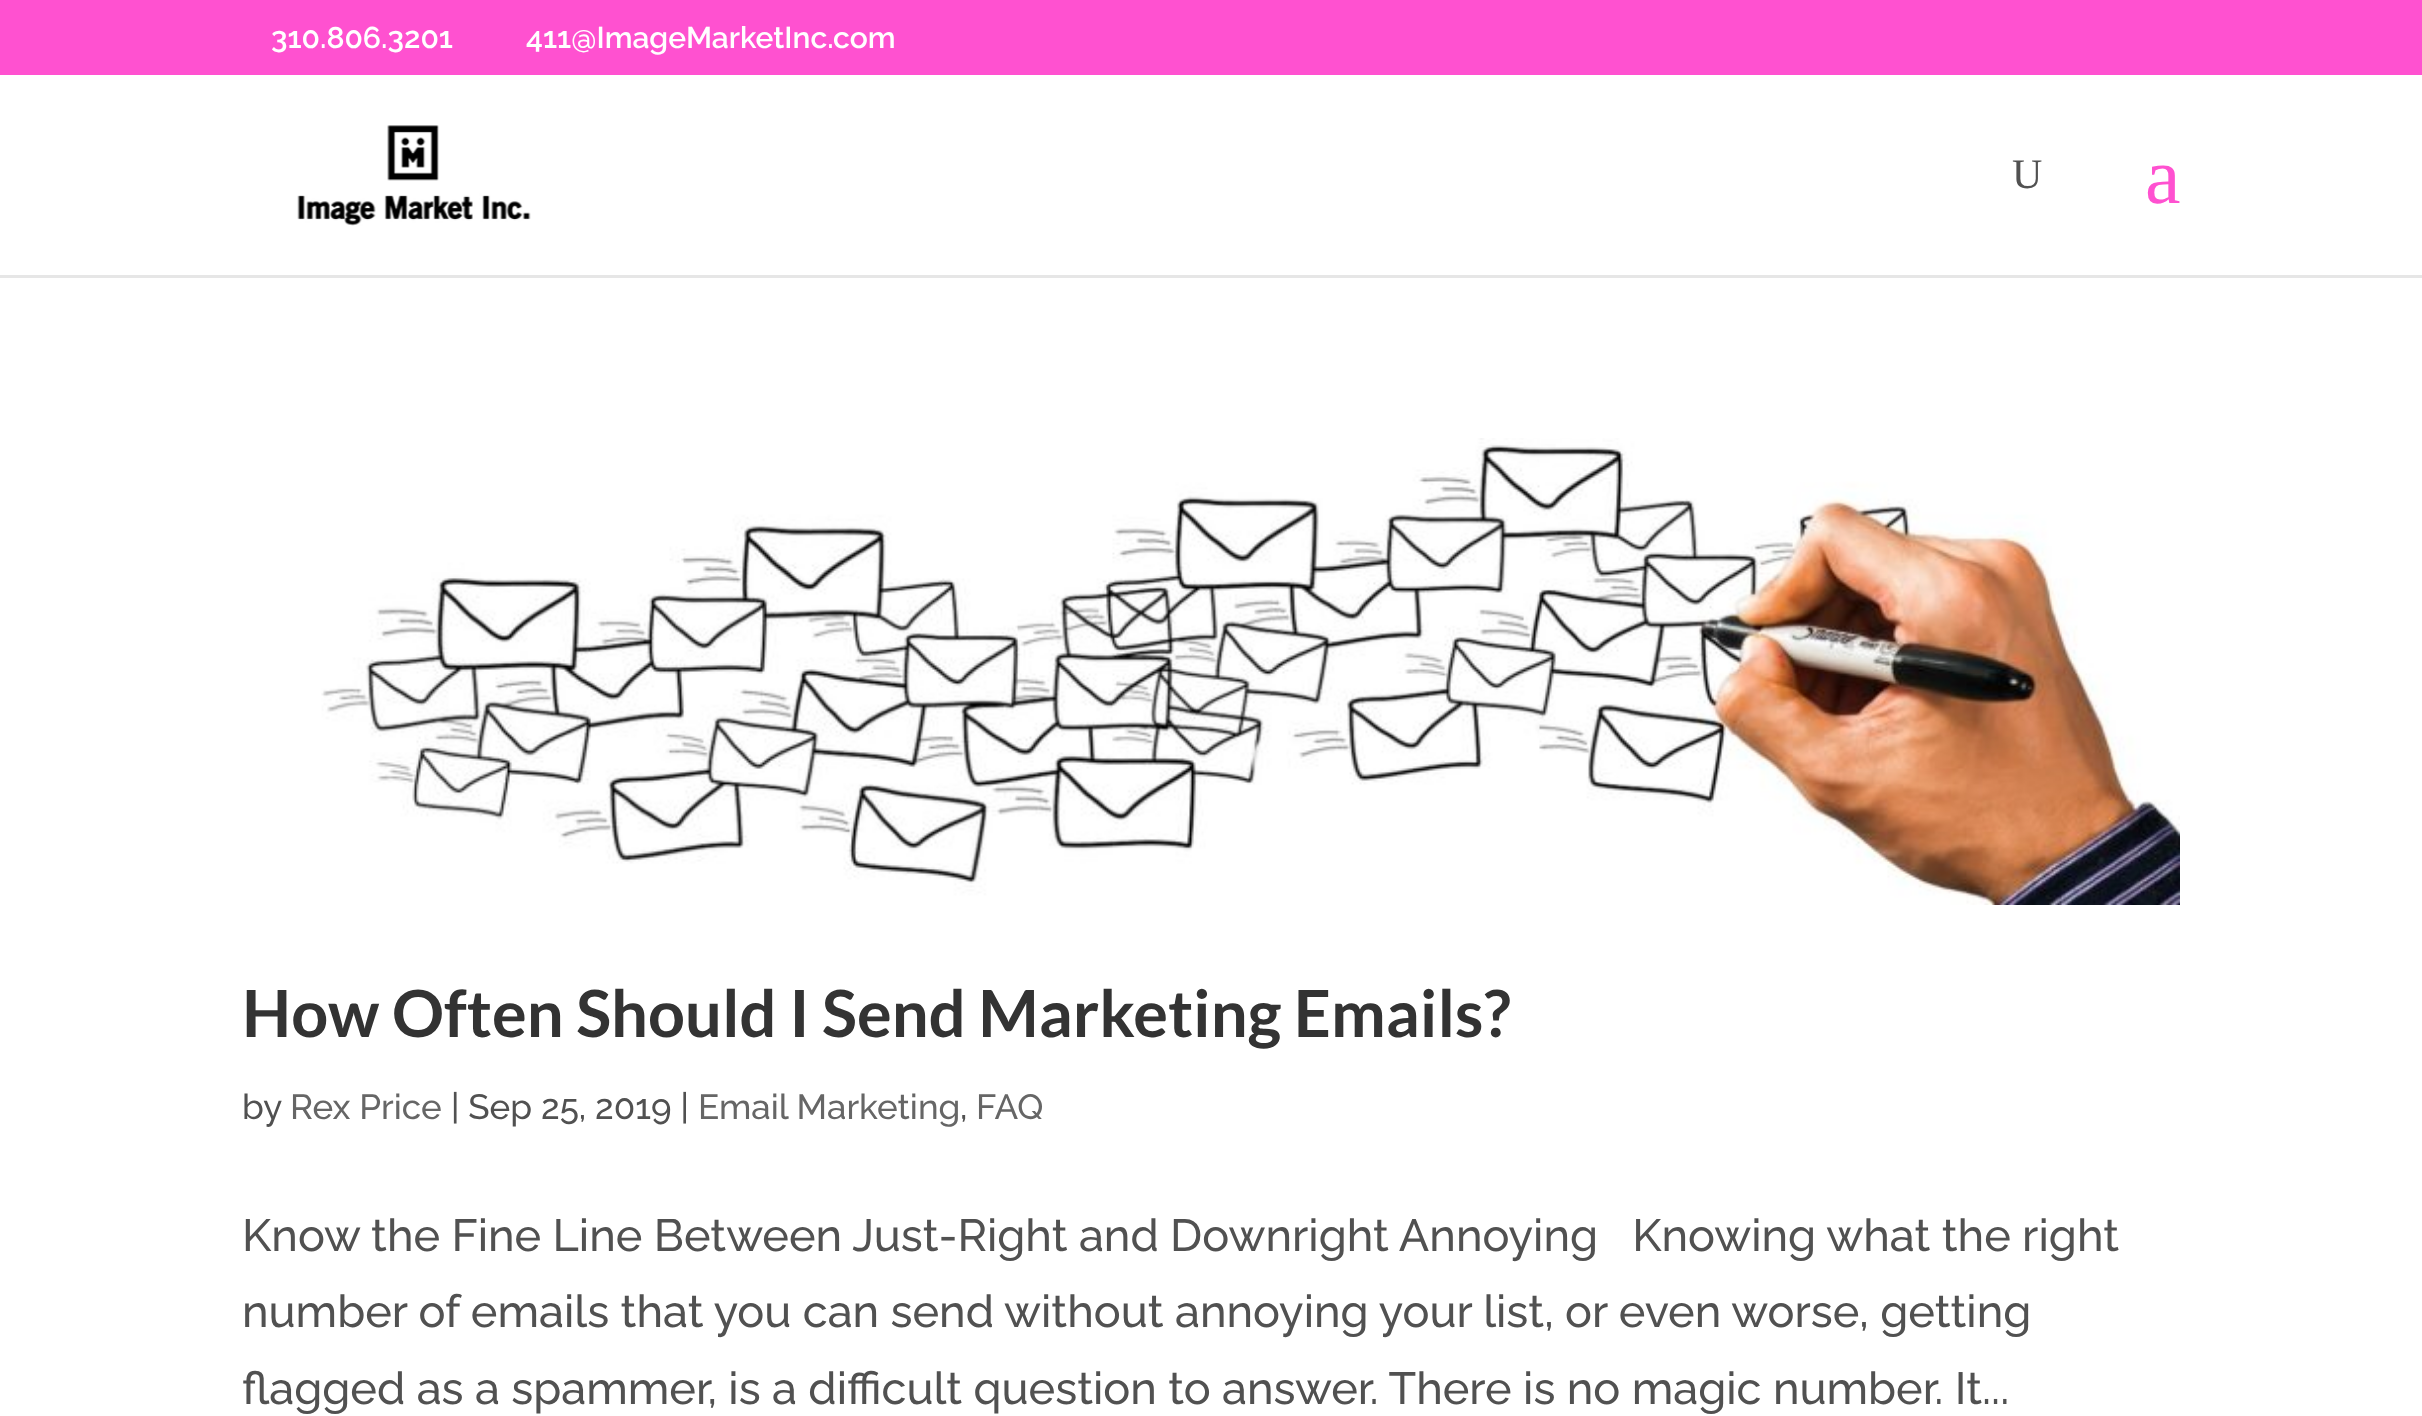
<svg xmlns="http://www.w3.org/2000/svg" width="2422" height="1416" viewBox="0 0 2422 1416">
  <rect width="100%" height="100%" fill="rgb(255,81,208)"/>
  <g font-family="Raleway" font-size="30" font-weight="100" fill="rgb(255,255,255)">
    <text x="271" y="48">310.806.3201</text>
    <text x="526" y="48">411@ImageMarketInc.com</text>
  </g>
  <path d="M0 275V278H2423V78H2422V275Z" fill="rgb(230,230,230)"/>
  <rect x="0" y="75" width="2422" height="200" fill="rgb(255,255,255)"/>
  <image x="297" y="125" width="234" height="101" href="pic1.png"/>
  <text x="2012" y="188" font-family="Liberation Serif" font-size="42" fill="rgb(81,81,81)">U</text>
  <text x="2145" y="203" font-family="Liberation Serif" font-size="80" fill="rgb(255,81,208)">a</text>
  <rect x="0" y="278" width="2422" height="1138" fill="rgb(255,255,255)"/>
  <image x="321" y="438" width="1859" height="467" href="pic2.png"/>
  <text x="242" y="1037" font-family="Lato" font-size="65" font-weight="bold" fill="rgb(51,51,51)">How Often Should I Send Marketing Emails?</text>
  <text x="242" y="1119" font-family="'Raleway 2'" font-size="35" font-weight="100" fill="rgb(81,81,81)">by</text>
  <text x="290" y="1119" font-family="'Raleway 2'" font-size="35" font-weight="100" fill="rgb(102,102,102)">Rex Price</text>
  <text x="451" y="1119" font-family="'Raleway 2'" font-size="35" font-weight="100" fill="rgb(81,81,81)">| Sep 25, 2019 |</text>
  <text x="698" y="1119" font-family="'Raleway 2'" font-size="35" font-weight="100" fill="rgb(102,102,102)">Email Marketing</text>
  <text x="960" y="1119" font-family="'Raleway 2'" font-size="35" font-weight="100" fill="rgb(81,81,81)">,</text>
  <text x="976" y="1119" font-family="'Raleway 2'" font-size="35" font-weight="100" fill="rgb(102,102,102)">FAQ</text>
  <g font-family="'Raleway 2'" font-size="45" font-weight="100" fill="rgb(81,81,81)">
    <text xml:space="preserve"><tspan x="242" y="1251">Know the Fine Line Between Just-Right and Downright Annoying   Knowing what the right</tspan><tspan x="242" y="1327">number of emails that you can send without annoying your list, or even worse, getting</tspan><tspan x="242" y="1404">flagged as a spammer, is a difficult question to answer. There is no magic number. It...</tspan></text>
  </g>
</svg>
